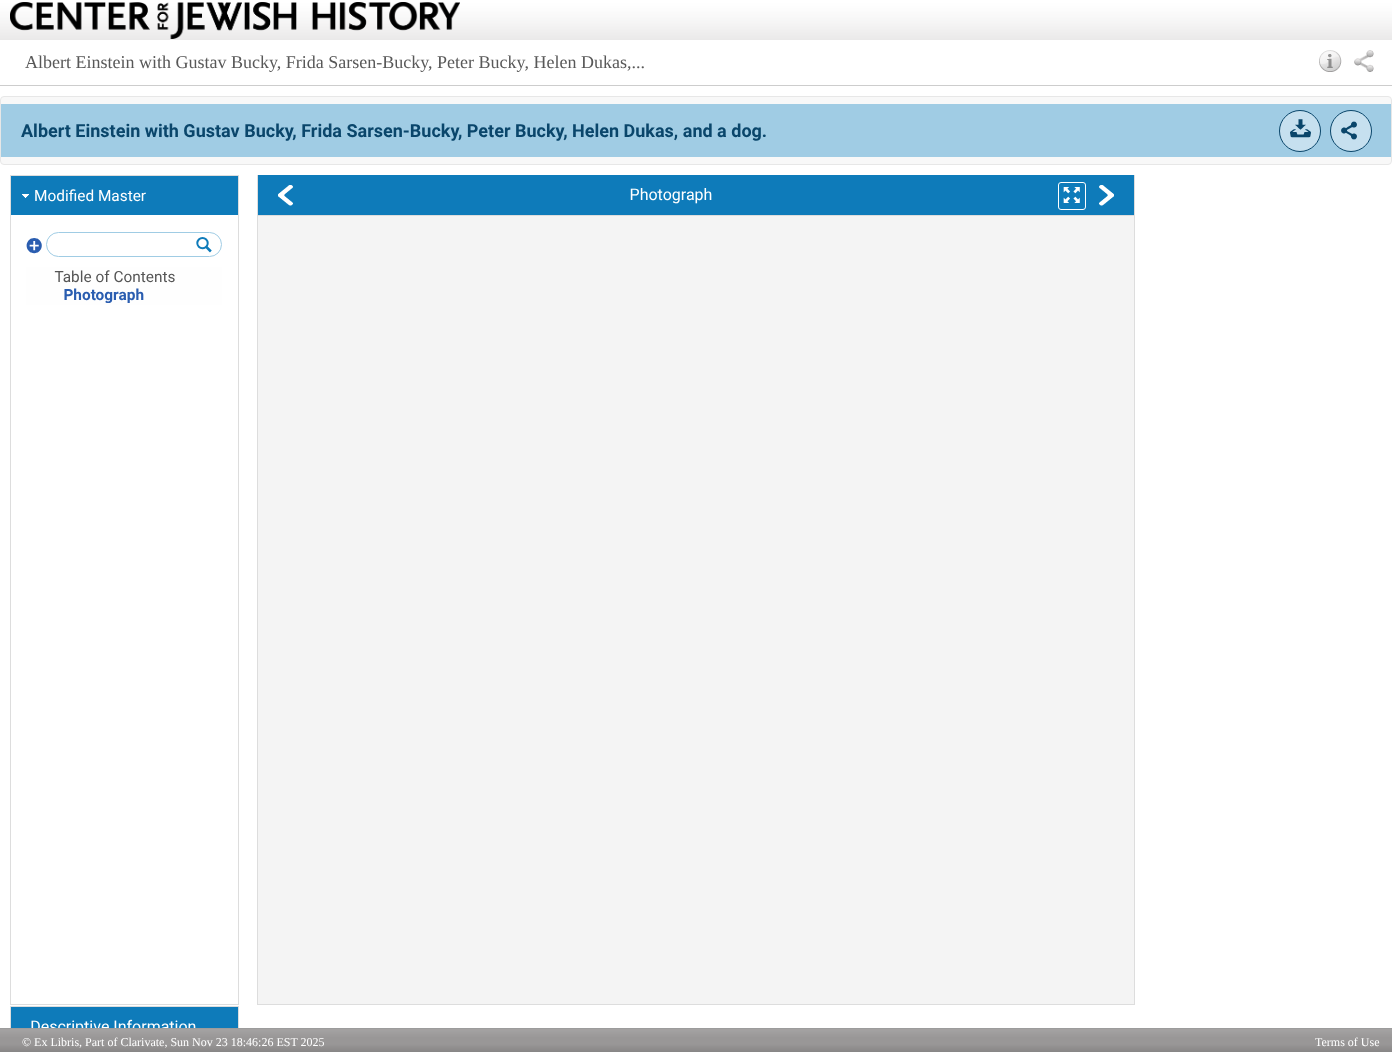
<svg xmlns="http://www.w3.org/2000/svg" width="1392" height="1052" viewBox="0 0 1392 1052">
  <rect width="100%" height="100%" fill="rgb(255,255,255)"/>
  <image x="0" y="0" width="1392" height="40" href="pic1.png"/>
  <image x="10" y="2" width="450" height="37" href="pic2.png"/>
  <text x="25" y="68" font-family="Liberation Serif" font-size="18" fill="rgb(88,88,88)">Albert Einstein with Gustav Bucky, Frida Sarsen-Bucky, Peter Bucky, Helen Dukas,...</text>
  <image x="1319" y="50" width="23" height="22" href="pic3.png"/>
  <image x="1354" y="50" width="20" height="22" href="pic4.png"/>
  <rect x="0" y="85" width="1392" height="1" fill="rgb(205,205,205)"/>
  <image x="0" y="96" width="1392" height="932" href="pic5.png"/>
  <rect x="0" y="1029" width="1392" height="23" fill="rgb(153,151,151)"/>
  <image x="0" y="1028" width="1392" height="24" href="pic6.png"/>
  <g font-family="Liberation Serif" font-size="12" fill="rgb(255,255,255)">
    <text x="22" y="1046">© Ex Libris, Part of Clarivate, Sun Nov 23 18:46:26 EST 2025</text>
    <text x="1315" y="1046">Terms of Use</text>
  </g>
</svg>
